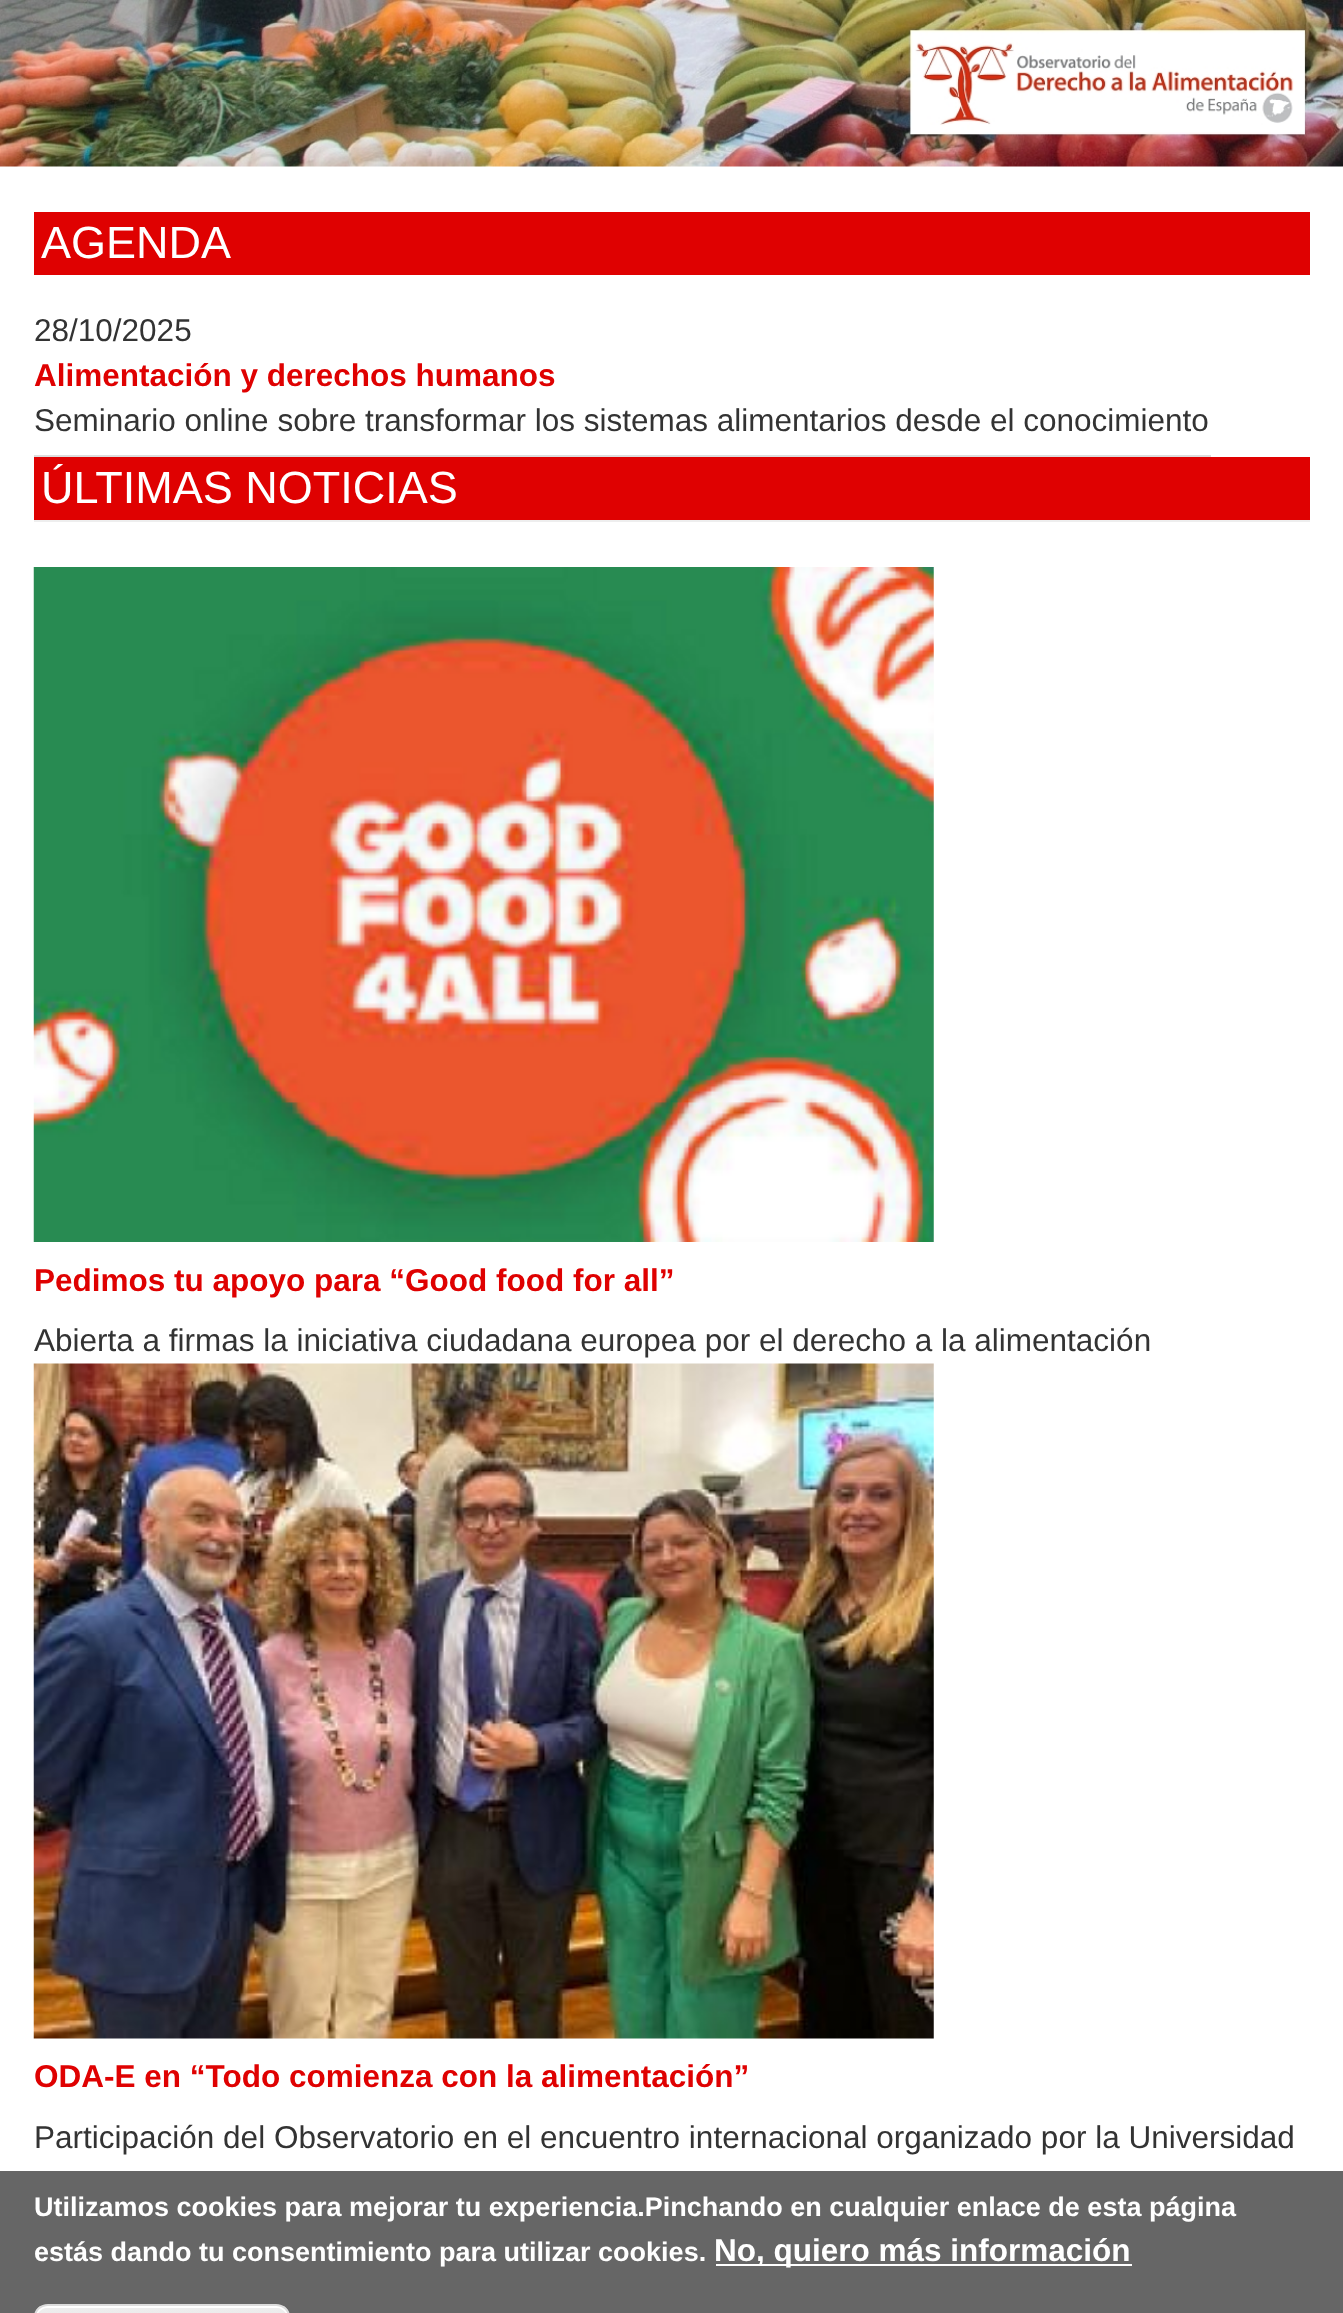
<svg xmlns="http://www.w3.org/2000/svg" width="1343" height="2313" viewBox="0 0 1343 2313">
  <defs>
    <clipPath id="clip1"><rect x="34" y="2304" width="256" height="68" rx="14"/></clipPath>
    <linearGradient id="g1" gradientUnits="userSpaceOnUse" x1="162" y1="2306" x2="162" y2="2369"><stop offset="0.05" stop-color="rgb(237,237,237)"/><stop offset="1" stop-color="rgb(223,223,223)"/></linearGradient>
  </defs>
  <rect width="100%" height="100%" fill="rgb(255,255,255)"/>
  <image x="0" y="0" width="1343" height="167" href="pic1.png"/>
  <rect x="34" y="212" width="1276" height="63" fill="rgb(223,1,1)"/>
  <text x="41" y="258" font-family="Liberation Sans" font-size="45" fill="rgb(255,255,255)">AGENDA</text>
  <rect x="34" y="455" width="1177" height="2" fill="rgb(221,221,221)"/>
  <text x="34" y="341" font-family="Liberation Sans" font-size="31.5" fill="rgb(51,51,51)">28/10/2025</text>
  <text x="34" y="386" font-family="Liberation Sans" font-size="31.5" font-weight="bold" fill="rgb(223,1,1)">Alimentación y derechos humanos</text>
  <text x="34" y="431" font-family="Liberation Sans" font-size="31.5" fill="rgb(51,51,51)">Seminario online sobre transformar los sistemas alimentarios desde el conocimiento</text>
  <rect x="34" y="457" width="1276" height="63" fill="rgb(223,1,1)"/>
  <rect x="34" y="520" width="1276" height="2" fill="rgb(238,238,238)"/>
  <text x="41" y="503" font-family="Liberation Sans" font-size="45" fill="rgb(255,255,255)">ÚLTIMAS NOTICIAS</text>
  <image x="33" y="567" width="901" height="675" href="pic2.png"/>
  <text x="34" y="1291" font-family="Liberation Sans" font-size="31.5" font-weight="bold" fill="rgb(223,1,1)">Pedimos tu apoyo para “Good food for all”</text>
  <text x="34" y="1351" font-family="Liberation Sans" font-size="31.5" fill="rgb(51,51,51)">Abierta a firmas la iniciativa ciudadana europea por el derecho a la alimentación</text>
  <image x="33" y="1363" width="901" height="676" href="pic3.png"/>
  <text x="34" y="2087" font-family="Liberation Sans" font-size="31.5" font-weight="bold" fill="rgb(223,1,1)">ODA-E en “Todo comienza con la alimentación”</text>
  <text x="34" y="2148" font-family="Liberation Sans" font-size="31.5" fill="rgb(51,51,51)">Participación del Observatorio en el encuentro internacional organizado por la Universidad</text>
  <rect x="0" y="2171" width="1343" height="142" fill="rgb(102,102,102)"/>
  <g font-family="Liberation Sans" font-size="27" font-weight="bold" fill="rgb(255,255,255)">
    <text>
      <tspan x="34" y="2216">Utilizamos cookies para mejorar tu experiencia.Pinchando en cualquier enlace de esta página</tspan>
      <tspan x="34" y="2261">estás dando tu consentimiento para utilizar cookies.</tspan>
    </text>
  </g>
  <rect x="716" y="2264" width="416" height="2" fill="rgb(255,255,255)"/>
  <text x="714" y="2261" font-family="Liberation Sans" font-size="31.5" font-weight="bold" fill="rgb(255,255,255)">No, quiero más información</text>
  <g clip-path="url(#clip1)">
    <rect x="34" y="2306" width="256" height="7" fill="url(#g1)"/>
  </g>
  <path d="M47 2308H277C283 2308 288 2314 288 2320V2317C288 2311 283 2306 277 2306H47C41 2306 36 2311 36 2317V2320C36 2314 41 2308 47 2308Z" fill="rgb(255,255,255)"/>
  <rect x="35" y="2305" width="254" height="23" rx="13" fill="none" stroke="rgb(220,220,220)" stroke-width="2"/>
</svg>
